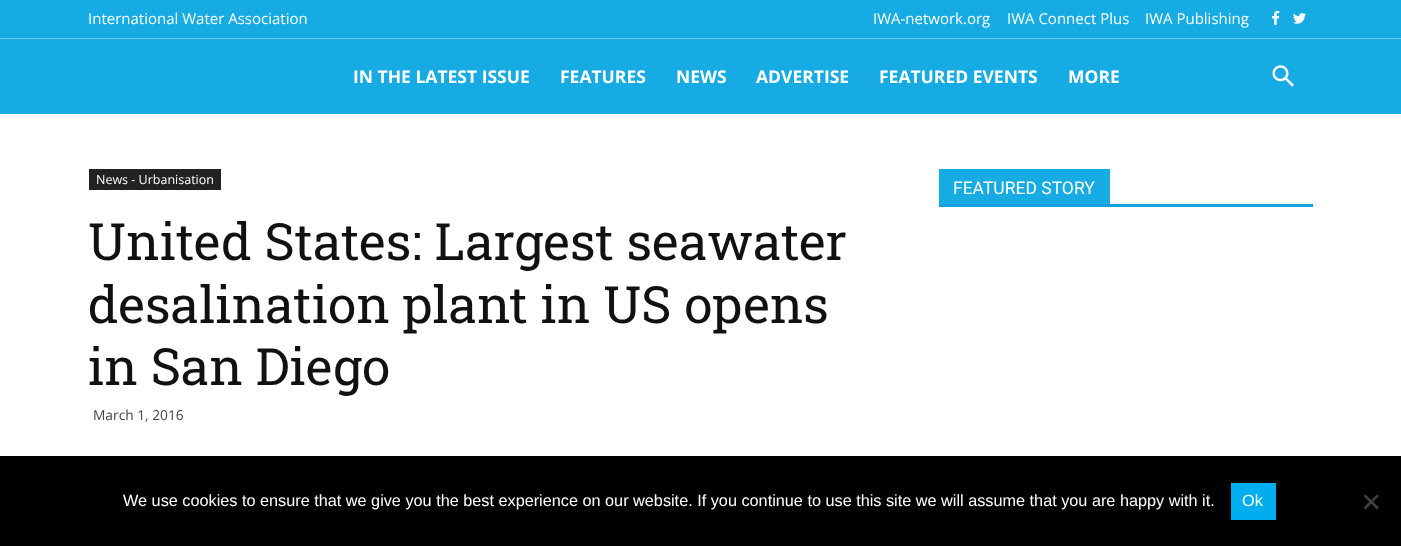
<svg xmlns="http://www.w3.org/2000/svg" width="1401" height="546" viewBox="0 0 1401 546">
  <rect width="100%" height="100%" fill="rgb(255,255,255)"/>
  <rect x="0" y="0" width="1401" height="38" fill="rgb(22,172,227)"/>
  <rect x="0" y="38" width="1401" height="1" fill="rgb(107,200,234)"/>
  <g font-family="Open Sans" font-size="15" fill="rgb(255,255,255)">
    <text x="88" y="24">International Water Association</text>
    <text x="873" y="24">IWA-network.org</text>
    <text x="1007" y="24">IWA Connect Plus</text>
    <text x="1145" y="24">IWA Publishing</text>
  </g>
  <image x="1272" y="10" width="8" height="15" href="pic1.png"/>
  <image x="1293" y="13" width="13" height="11" href="pic2.png"/>
  <rect x="0" y="39" width="1401" height="75" fill="rgb(22,172,227)"/>
  <g font-family="Open Sans" font-size="17.5" font-weight="bold" fill="rgb(255,255,255)">
    <text x="353" y="83">IN THE LATEST ISSUE</text>
    <text x="560" y="83">FEATURES</text>
    <text x="676" y="83">NEWS</text>
    <text x="756" y="83">ADVERTISE</text>
    <text x="879" y="83">FEATURED EVENTS</text>
    <text x="1068" y="83">MORE</text>
  </g>
  <image x="1272" y="65" width="22" height="22" href="pic3.png"/>
  <rect x="89" y="169" width="132" height="21" fill="rgb(34,34,34)"/>
  <text x="96" y="184" font-family="Open Sans" font-size="12.5" fill="rgb(255,255,255)">News - Urbanisation</text>
  <g font-family="Roboto Slab" font-size="51.25" fill="rgb(17,17,17)">
    <text>
      <tspan x="88" y="260">United States: Largest seawater</tspan>
      <tspan x="88" y="323">desalination plant in US opens</tspan>
      <tspan x="88" y="385">in San Diego</tspan>
    </text>
  </g>
  <text x="93" y="420" font-family="Open Sans" font-size="13.75" fill="rgb(68,68,68)">March 1, 2016</text>
  <rect x="939" y="204" width="374" height="3" fill="rgb(20,163,223)"/>
  <rect x="939" y="169" width="171" height="35" fill="rgb(22,172,227)"/>
  <text x="953" y="194" font-family="Roboto" font-size="17.5" fill="rgb(255,255,255)">FEATURED STORY</text>
  <rect x="0" y="456" width="1401" height="90" fill="rgb(0,0,0)"/>
  <text x="123" y="506" font-family="Liberation Sans" font-size="16.25" fill="rgb(255,255,255)">We use cookies to ensure that we give you the best experience on our website. If you continue to use this site we will assume that you are happy with it.</text>
  <rect x="1231" y="483" width="45" height="37" fill="rgb(0,174,239)"/>
  <text x="1242" y="506" font-family="Liberation Sans" font-size="16.25" fill="rgb(255,255,255)">Ok</text>
  <path d="M1377 494.5L1379 496L1365.5 509.5L1363.5 507.5Z" fill="rgb(64,64,64)"/>
  <path d="M1363.5 496L1365.5 494.5L1379 507.5L1377 509.5Z" fill="rgb(64,64,64)"/>
</svg>
